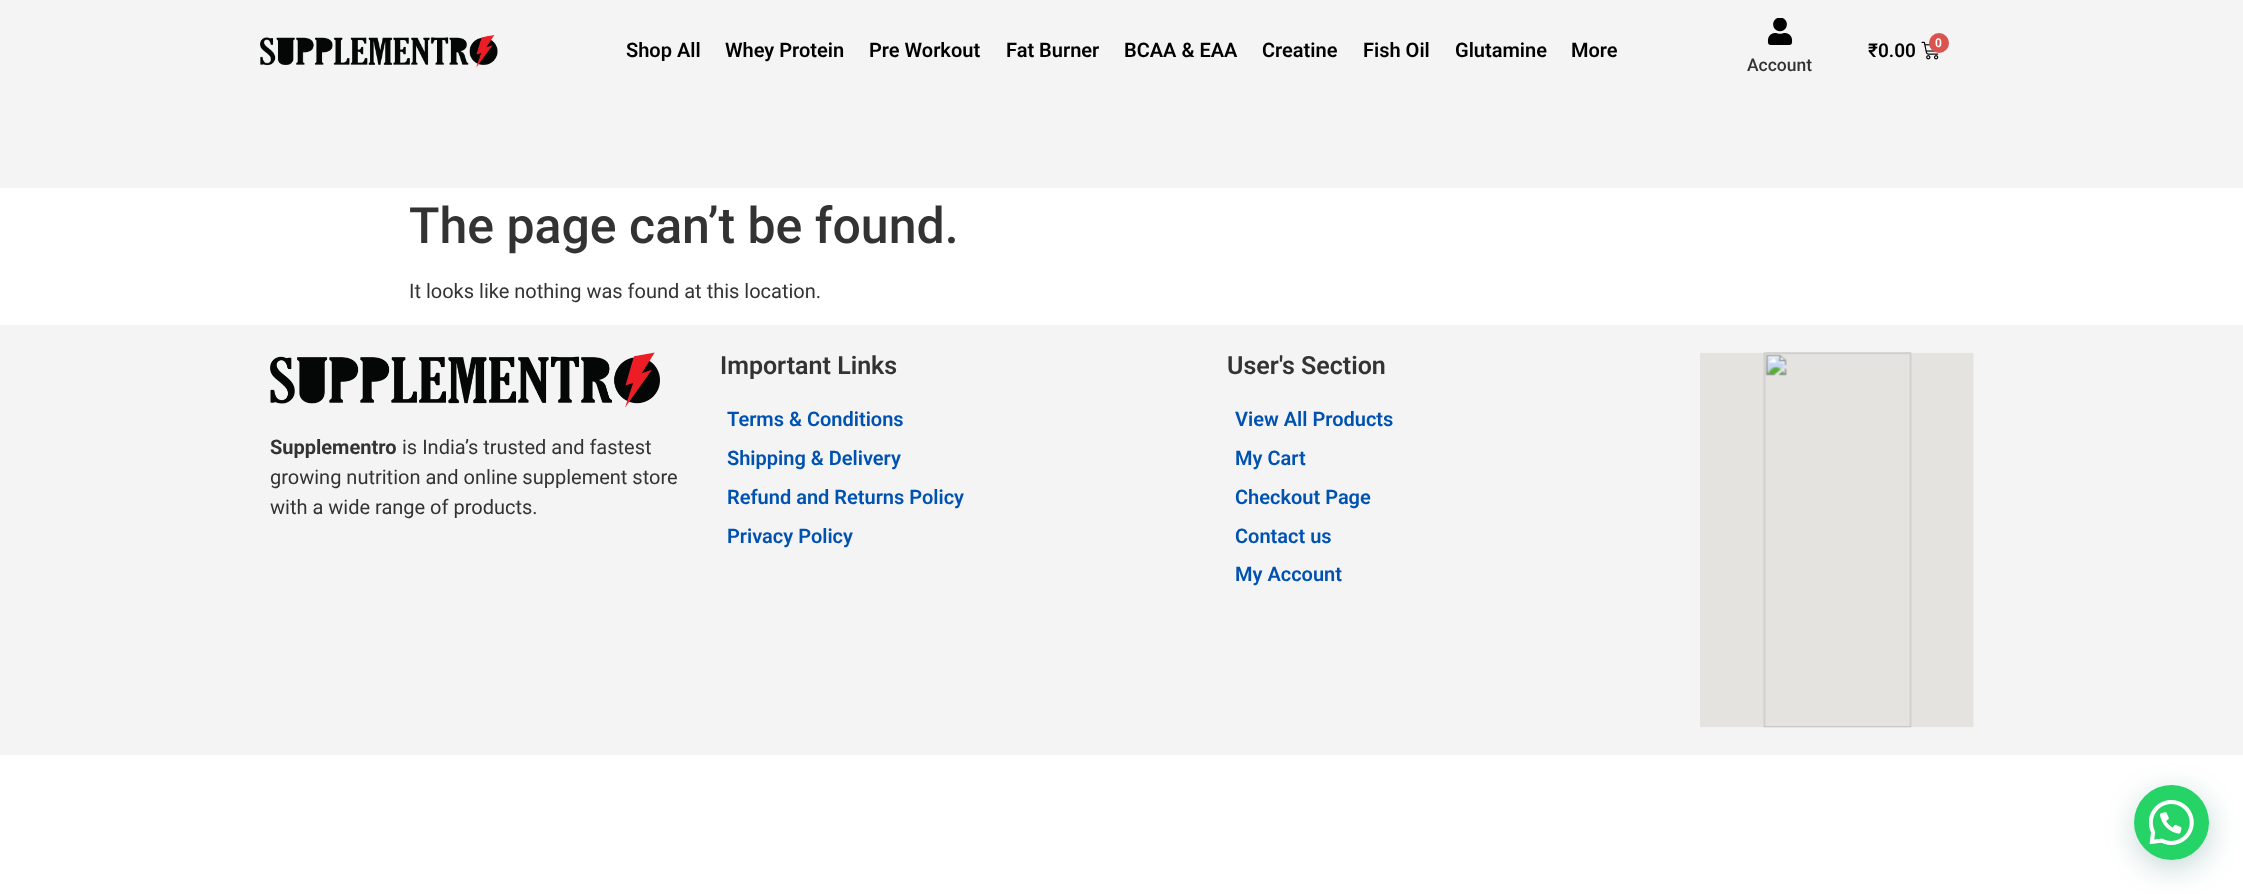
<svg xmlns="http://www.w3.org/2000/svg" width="2243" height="894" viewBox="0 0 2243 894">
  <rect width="100%" height="100%" fill="rgb(255,255,255)"/>
  <rect x="0" y="0" width="2243" height="188" fill="rgb(244,244,244)"/>
  <image x="260" y="35" width="238" height="33" href="pic1.png"/>
  <g font-family="Roboto" font-size="20" font-weight="600" fill="rgb(0,0,0)">
    <text x="626" y="57">Shop All</text>
    <text x="725" y="57">Whey Protein</text>
    <text x="869" y="57">Pre Workout</text>
    <text x="1006" y="57">Fat Burner</text>
    <text x="1124" y="57">BCAA &amp; EAA</text>
    <text x="1262" y="57">Creatine</text>
    <text x="1363" y="57">Fish Oil</text>
    <text x="1455" y="57">Glutamine</text>
    <text x="1571" y="57">More</text>
  </g>
  <text x="1868" y="57" font-family="Roboto" font-size="19" font-weight="600" fill="rgb(0,0,0)">₹0.00</text>
  <image x="1921" y="41" width="18" height="19" href="pic2.png"/>
  <circle cx="1939" cy="43" r="10" fill="rgb(217,83,79)"/>
  <text x="1935" y="47" font-family="Roboto" font-size="12" font-weight="600" fill="rgb(255,255,255)">0</text>
  <image x="1767" y="18" width="26" height="27" href="pic3.png"/>
  <text x="1747" y="71" font-family="Roboto" font-size="17.5" font-weight="500" fill="rgb(51,51,51)">Account</text>
  <text x="409" y="243" font-family="Roboto" font-size="50" font-weight="500" fill="rgb(51,51,51)">The page can’t be found.</text>
  <text x="409" y="298" font-family="Roboto" font-size="20" fill="rgb(51,51,51)">It looks like nothing was found at this location.</text>
  <rect x="0" y="325" width="2243" height="430" fill="rgb(244,244,244)"/>
  <image x="270" y="352" width="390" height="56" href="pic4.png"/>
  <text x="270" y="454" font-family="Roboto" font-size="20" font-weight="bold" fill="rgb(51,51,51)">Supplementro</text>
  <g font-family="Roboto" font-size="20" fill="rgb(51,51,51)">
    <text x="402" y="454">is India’s trusted and fastest</text>
    <text>
      <tspan x="270" y="484">growing nutrition and online supplement store</tspan>
      <tspan x="270" y="514">with a wide range of products.</tspan>
    </text>
  </g>
  <text x="720" y="374" font-family="Roboto" font-size="25" font-weight="600" fill="rgb(51,51,51)">Important Links</text>
  <g font-family="Roboto" font-size="20" font-weight="600" fill="rgb(0,82,177)">
    <text>
      <tspan x="727" y="426">Terms &amp; Conditions</tspan>
      <tspan x="727" y="465">Shipping &amp; Delivery</tspan>
      <tspan x="727" y="504">Refund and Returns Policy</tspan>
      <tspan x="727" y="543">Privacy Policy</tspan>
    </text>
  </g>
  <text x="1227" y="374" font-family="Roboto" font-size="25" font-weight="600" fill="rgb(51,51,51)">User's Section</text>
  <g font-family="Roboto" font-size="20" font-weight="600" fill="rgb(0,82,177)">
    <text>
      <tspan x="1235" y="426">View All Products</tspan>
      <tspan x="1235" y="465">My Cart</tspan>
      <tspan x="1235" y="504">Checkout Page</tspan>
      <tspan x="1235" y="543">Contact us</tspan>
      <tspan x="1235" y="581">My Account</tspan>
    </text>
  </g>
  <image x="1700" y="352" width="274" height="376" href="pic5.png"/>
  <rect x="2135" y="793" width="75" height="75" rx="37.5" fill="rgba(7,94,84,0.24)" filter="blur(15px)"/>
  <circle cx="2171.5" cy="822.5" r="37.5" fill="rgb(37,211,102)"/>
  <image x="2149" y="800" width="45" height="45" href="pic6.png"/>
</svg>
